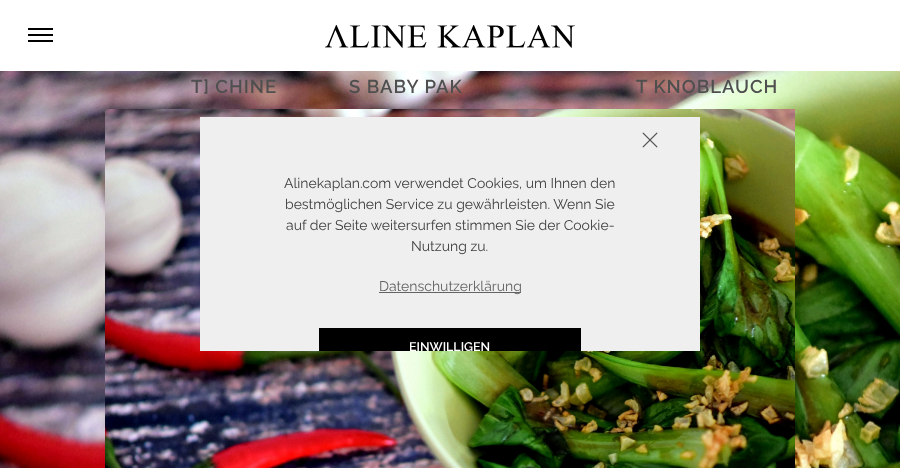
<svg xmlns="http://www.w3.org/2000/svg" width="900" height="468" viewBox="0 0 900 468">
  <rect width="100%" height="100%" fill="rgb(255,255,255)"/>
  <rect x="28" y="28" width="25" height="2" fill="rgb(0,0,0)"/>
  <rect x="28" y="34" width="25" height="2" fill="rgb(0,0,0)"/>
  <rect x="28" y="40" width="25" height="2" fill="rgb(0,0,0)"/>
  <image x="325" y="25" width="250" height="23" href="pic1.png"/>
  <image x="0" y="71" width="900" height="397" href="pic2.png"/>
  <g font-family="Raleway" font-size="18.5" font-weight="100" letter-spacing="1" fill="rgb(79,79,79)">
    <text x="191" y="93">T] CHINE</text>
    <text x="349" y="93">S BABY PAK</text>
    <text x="636" y="93">T KNOBLAUCH</text>
  </g>
  <image x="105" y="109" width="690" height="359" href="pic3.png"/>
  <rect x="200" y="117" width="500" height="234" fill="rgb(239,239,239)"/>
  <g font-family="'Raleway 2'" font-size="14" font-weight="100" fill="rgb(64,64,64)">
    <text x="284" y="188">Alinekaplan.com verwendet Cookies, um Ihnen den</text>
    <text x="285" y="209">bestmöglichen Service zu gewährleisten. Wenn Sie</text>
    <text x="286" y="230">auf der Seite weitersurfen stimmen Sie der Cookie-</text>
    <text x="411" y="251">Nutzung zu.</text>
  </g>
  <rect x="379" y="292" width="142" height="1" fill="rgb(99,99,99)"/>
  <text x="379" y="291" font-family="'Raleway 2'" font-size="14" font-weight="100" fill="rgb(99,99,99)">Datenschutzerklärung</text>
  <image x="642" y="132" width="16" height="16" href="pic4.png"/>
  <rect x="319" y="328" width="262" height="23" fill="rgb(0,0,0)"/>
  <text x="409" y="351" font-family="Raleway" font-size="12.5" font-weight="100" fill="rgb(255,255,255)">EINWILLIGEN</text>
</svg>
